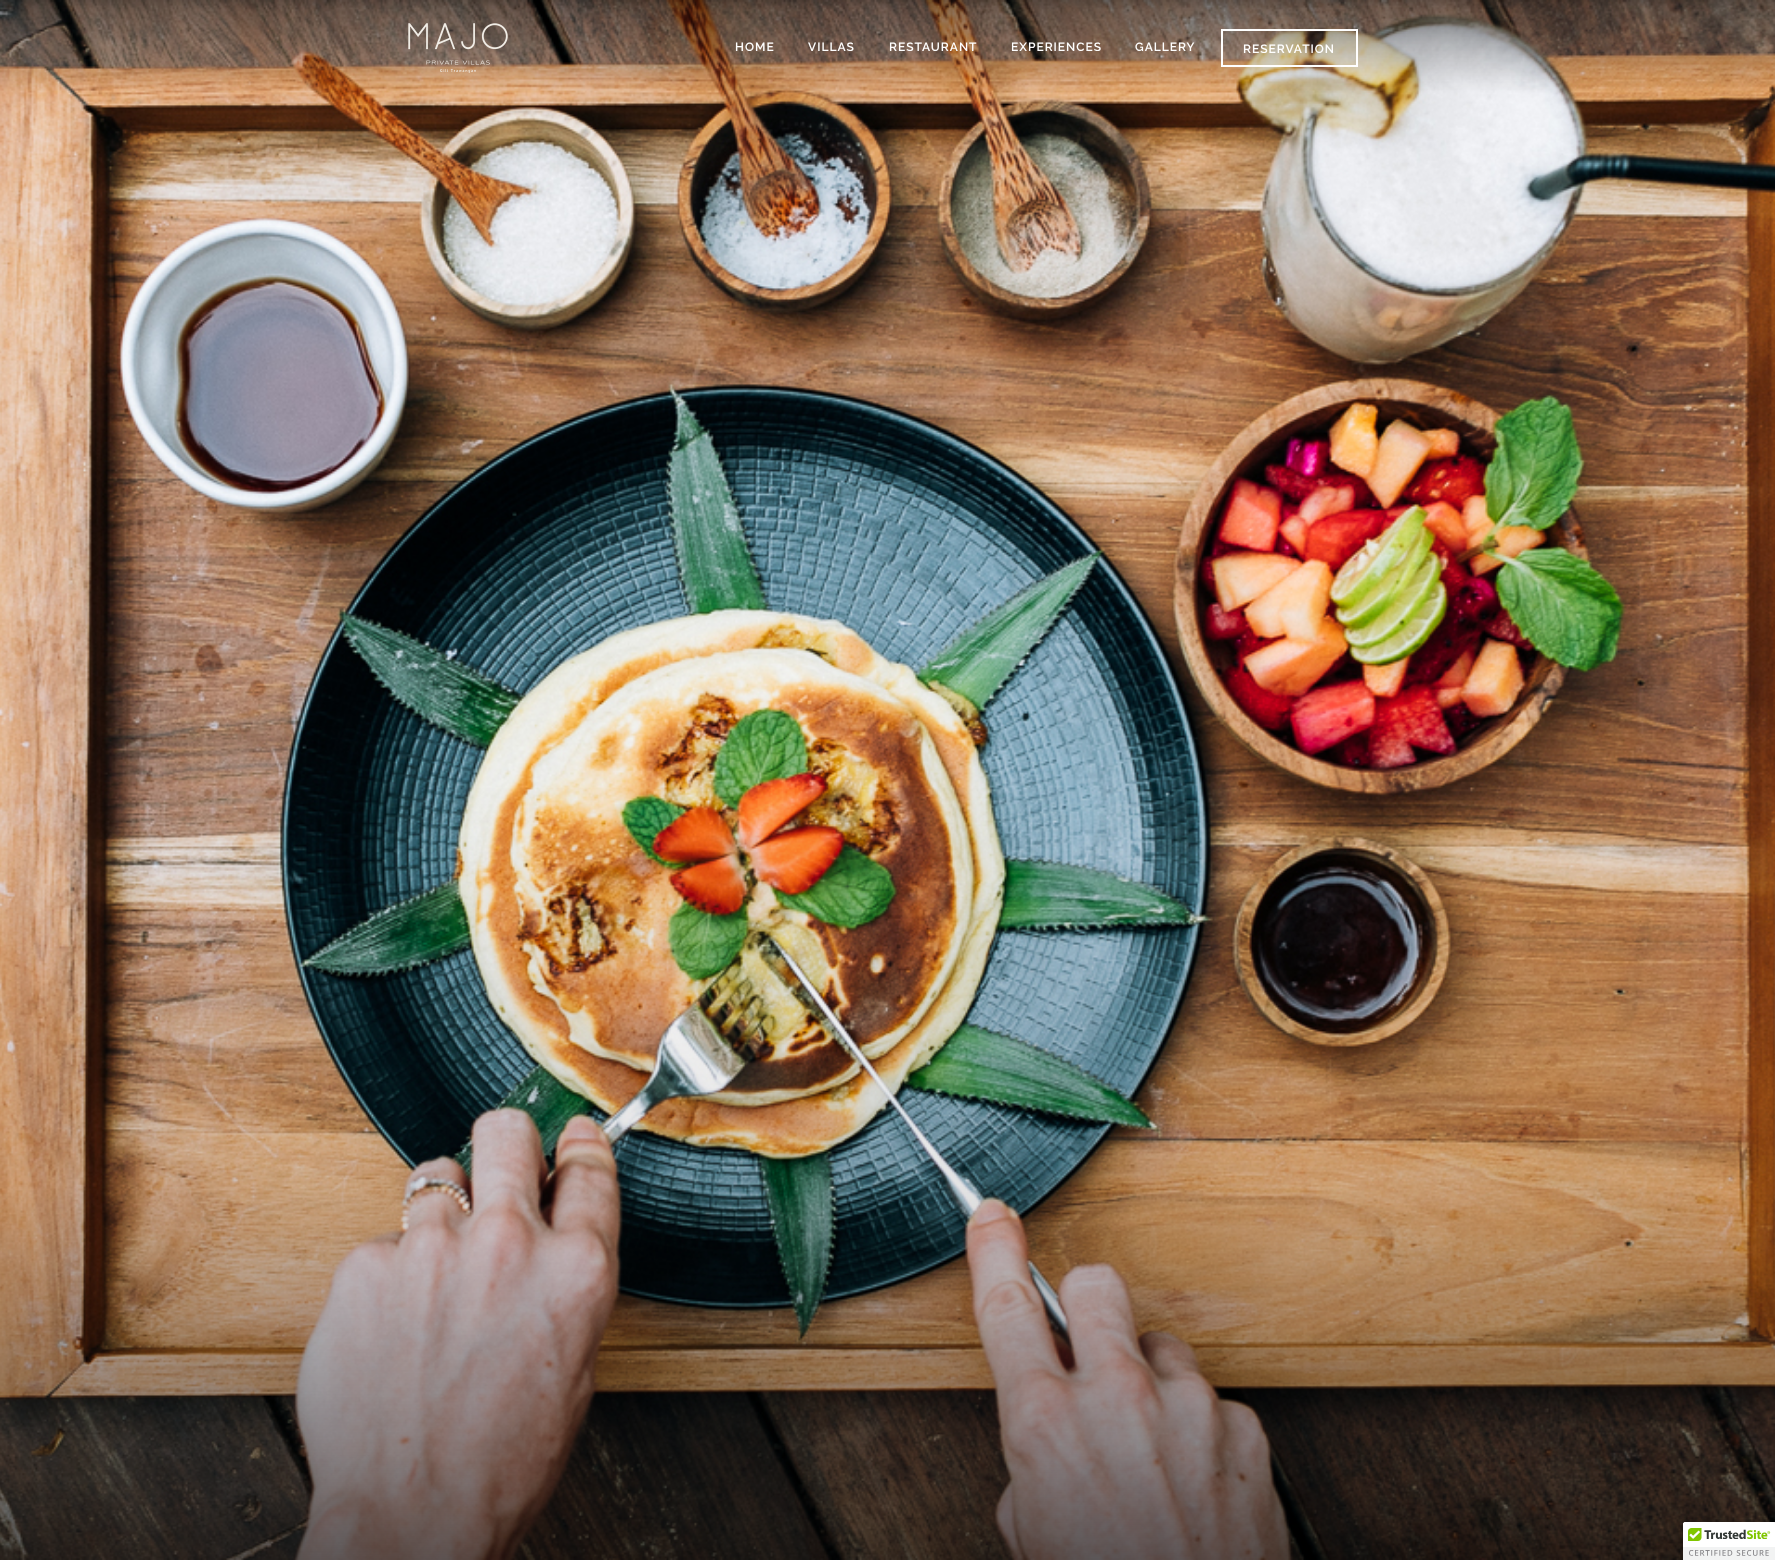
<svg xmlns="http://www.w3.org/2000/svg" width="1775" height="1560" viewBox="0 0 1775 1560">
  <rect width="100%" height="100%" fill="rgb(255,255,255)"/>
  <image x="0" y="0" width="1775" height="1560" href="pic1.png"/>
  <image x="408" y="23" width="100" height="50" href="pic2.png"/>
  <g font-family="Raleway" font-size="12" font-weight="600" letter-spacing="1" fill="rgb(255,255,255)">
    <text x="735" y="51">HOME</text>
    <text x="808" y="51">VILLAS</text>
    <text x="889" y="51">RESTAURANT</text>
    <text x="1011" y="51">EXPERIENCES</text>
    <text x="1135" y="51">GALLERY</text>
  </g>
  <rect x="1222" y="30" width="135" height="36" fill="none" stroke="rgb(255,255,255)" stroke-width="2"/>
  <text x="1243" y="53" font-family="Raleway" font-size="12" font-weight="600" letter-spacing="1" fill="rgb(255,255,255)">RESERVATION</text>
  <rect x="1683" y="1522" width="92" height="38" rx="2" fill="rgba(0,0,0,0.2)" filter="blur(2.5px)"/>
  <path d="M1685 1522H1775V1560H1683V1524C1683 1523 1684 1522 1685 1522Z" fill="rgb(255,255,255)"/>
  <image x="1683" y="1522" width="92" height="38" href="pic3.png"/>
</svg>
